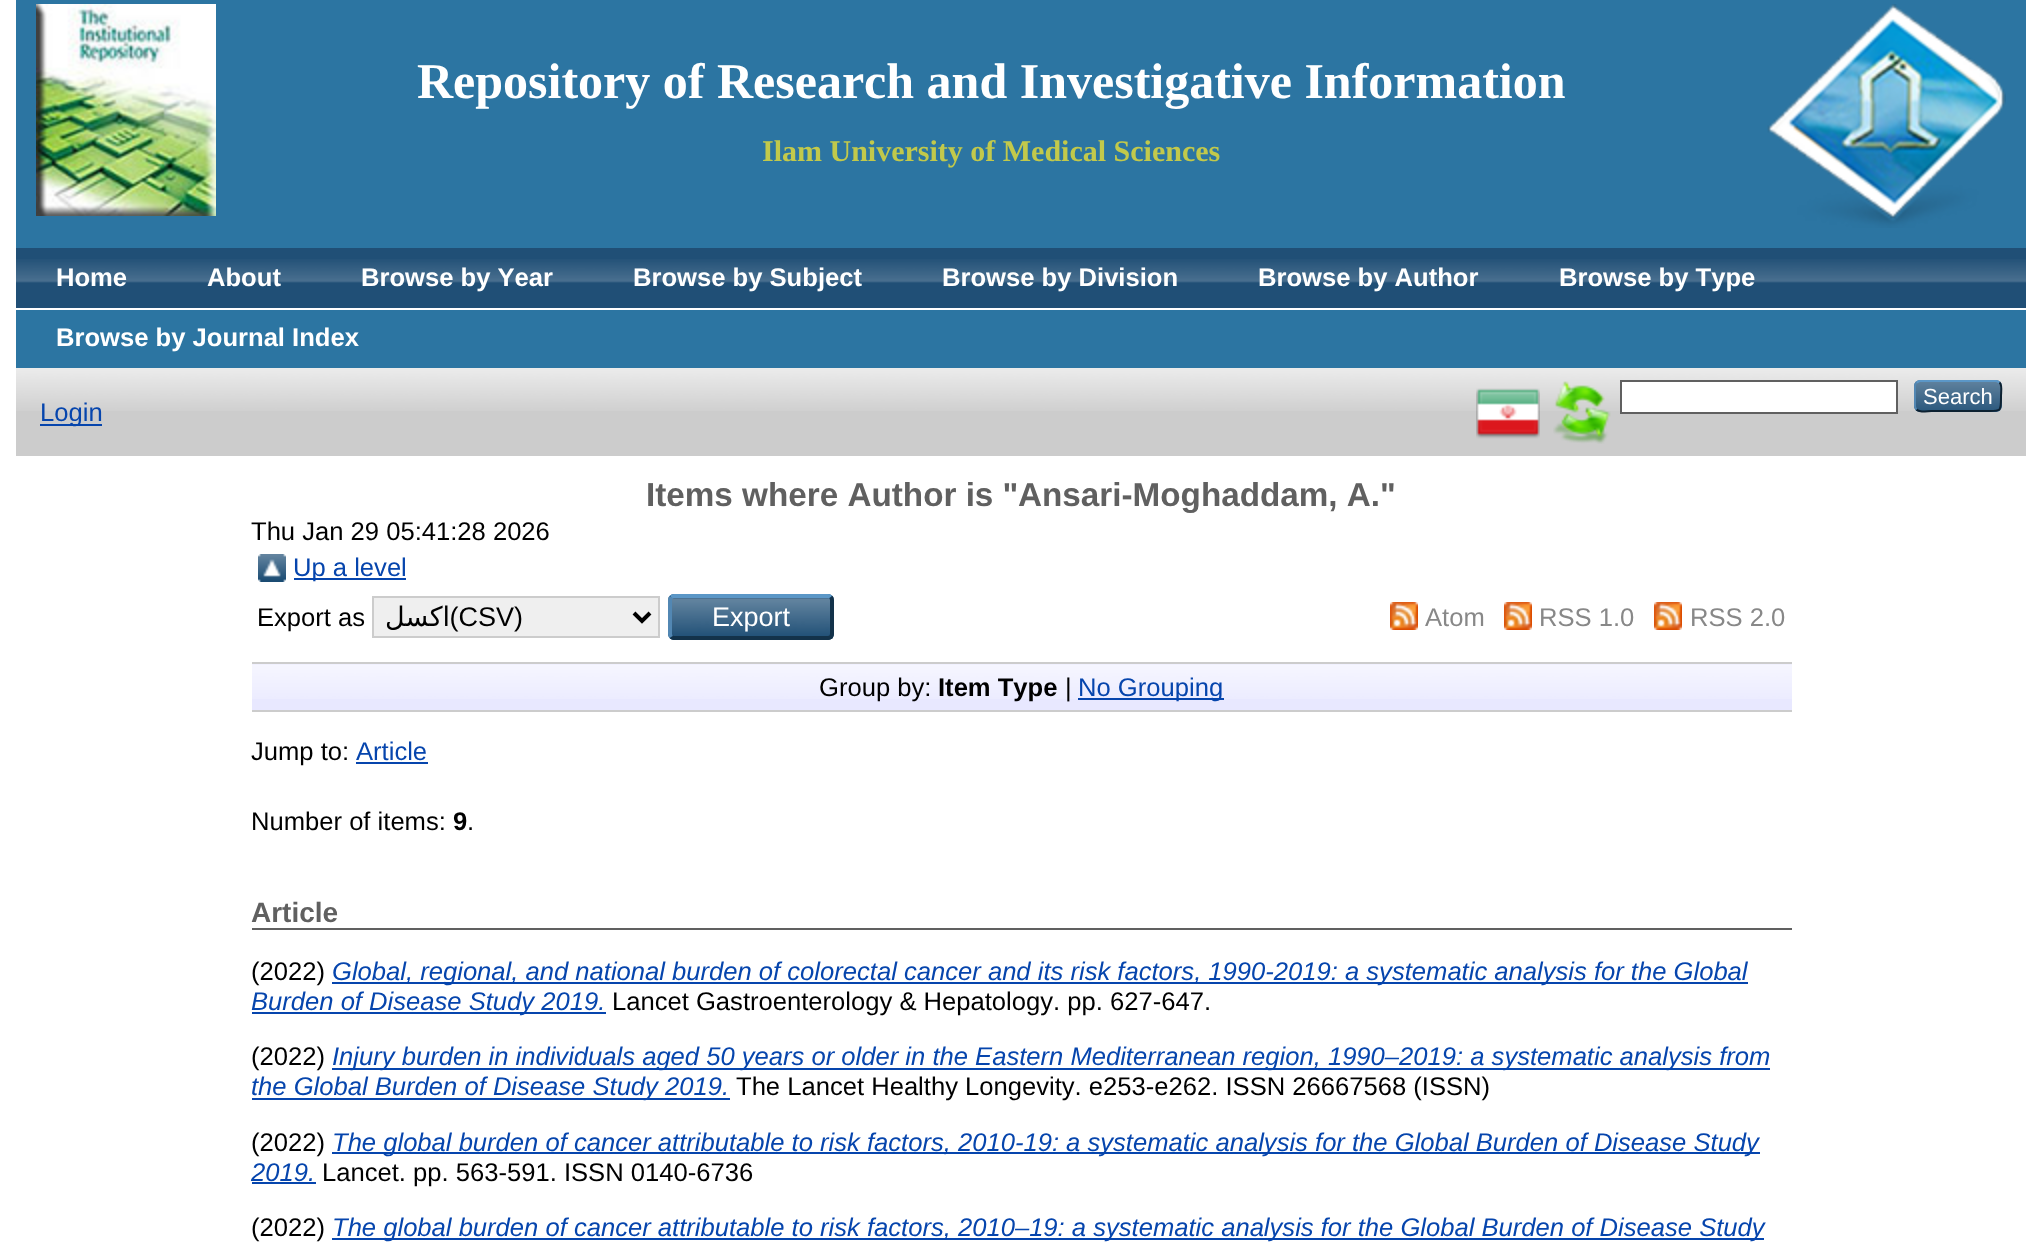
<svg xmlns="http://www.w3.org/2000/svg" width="2041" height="1253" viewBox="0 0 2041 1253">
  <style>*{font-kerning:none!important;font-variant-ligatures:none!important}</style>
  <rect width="100%" height="100%" fill="rgb(255,255,255)"/>
  <rect x="16" y="0" width="2010" height="368" fill="rgb(44,117,162)"/>
  <image x="36" y="4" width="180" height="212" href="pic1.png"/>
  <text x="417" y="98" font-family="Liberation Serif" font-size="50" font-weight="bold" fill="rgb(255,255,255)">Repository of Research and Investigative Information</text>
  <text x="762" y="161" font-family="Liberation Serif" font-size="30" font-weight="bold" fill="rgb(194,201,75)">Ilam University of Medical Sciences</text>
  <image x="1767" y="4" width="239" height="224" href="pic2.png"/>
  <rect x="16" y="248" width="2010" height="60" fill="rgb(32,79,118)"/>
  <image x="16" y="259" width="2010" height="24" href="pic3.png"/>
  <rect x="16" y="308" width="2010" height="2" fill="rgb(255,255,255)"/>
  <g font-family="Liberation Sans" font-size="25.6" font-weight="bold" fill="rgb(255,255,255)">
    <text x="56" y="286">Home</text>
    <text x="207" y="286">About</text>
    <text x="361" y="286">Browse by Year</text>
    <text x="633" y="286">Browse by Subject</text>
    <text x="942" y="286">Browse by Division</text>
    <text x="1258" y="286">Browse by Author</text>
    <text x="1559" y="286">Browse by Type</text>
    <text x="56" y="346">Browse by Journal Index</text>
  </g>
  <rect x="16" y="368" width="2010" height="88" fill="rgb(204,204,204)"/>
  <image x="16" y="368" width="2010" height="43" href="pic4.png"/>
  <image x="1476" y="388" width="64" height="51" href="pic5.png"/>
  <image x="1553" y="381" width="58" height="63" href="pic6.png"/>
  <rect x="1621" y="381" width="276" height="32" fill="rgb(255,255,255)" stroke="rgb(96,96,96)" stroke-width="2"/>
  <rect x="1914" y="380" width="88" height="32" rx="6" fill="rgb(31,79,118)"/>
  <image x="1914" y="380" width="88" height="32" href="pic7.png"/>
  <path d="M1916.5 382.5L1919.5 381H1996.5L1999.5 382.5" fill="none" stroke="rgb(91,151,199)" stroke-width="2"/>
  <path d="M1999.5 382.5C2002.5 385 2001 392.5 2001 396C2001 413 2001.5 411 1983.5 411H1932.5C1931.5 411 1920 413 1916.5 409.5" fill="none" stroke="rgb(13,33,49)" stroke-width="2"/>
  <path d="M1916.5 409.5C1915.5 408.5 1915 407.5 1915 406V386C1915 384.5 1915.5 383.5 1916.5 382.5" fill="none" stroke="rgb(82,135,179)" stroke-width="2"/>
  <text x="1923" y="404" font-family="Liberation Sans" font-size="22" fill="rgb(255,255,255)">Search</text>
  <rect x="40" y="424" width="62" height="2" fill="rgb(6,69,173)"/>
  <text x="40" y="421" font-family="Liberation Sans" font-size="25.6" fill="rgb(6,69,173)">Login</text>
  <g font-family="Liberation Sans" font-size="33.25" font-weight="bold" fill="rgb(96,96,96)">
    <text x="646" y="506">Items where Author is "</text>
    <text x="1018" y="506">Ansari-Moghaddam, A.</text>
    <text x="1380" y="506">"</text>
  </g>
  <text x="251" y="540" font-family="Liberation Sans" font-size="25.6" fill="rgb(0,0,0)">Thu Jan 29 05:41:28 2026</text>
  <image x="258" y="554" width="28" height="28" href="pic8.png"/>
  <rect x="294" y="578" width="112" height="2" fill="rgb(6,69,173)"/>
  <text x="293" y="576" font-family="Liberation Sans" font-size="25.6" fill="rgb(6,69,173)">Up a level</text>
  <text x="257" y="626" font-family="Liberation Sans" font-size="25.6" fill="rgb(0,0,0)">Export as</text>
  <rect x="373" y="597" width="286" height="40" fill="rgb(239,239,239)" stroke="rgb(204,204,204)" stroke-width="2"/>
  <path d="M634 613L642 621L650 613" fill="none" stroke="rgb(0,0,0)" stroke-width="4"/>
  <text x="450" y="626" font-family="DejaVu Sans" font-size="27" direction="rtl" fill="rgb(0,0,0)">اکسل</text>
  <text x="523" y="626" font-family="Liberation Sans" font-size="27" direction="rtl" fill="rgb(0,0,0)">(CSV)</text>
  <rect x="668" y="594" width="166" height="46" rx="6" fill="rgb(31,79,118)"/>
  <image x="668" y="597" width="166" height="39" href="pic9.png"/>
  <path d="M671 597C672 596.5 673 596 674 596H828C829 596 830 596.5 831 597" fill="none" stroke="rgb(91,151,199)" stroke-width="4"/>
  <path d="M831 597C831.5 598 832 599 832 600V634C832 635 831.5 636 831 637C830 637.5 829 638 828 638H674C673 638 672 637.5 671 637" fill="none" stroke="rgb(19,50,74)" stroke-width="4"/>
  <path d="M671 637C670.5 636 670 635 670 634V600C670 599 670.5 598 671 597" fill="none" stroke="rgb(82,135,179)" stroke-width="4"/>
  <text x="712" y="626" font-family="Liberation Sans" font-size="27" fill="rgb(255,255,255)">Export</text>
  <image x="1390" y="602" width="28" height="28" href="pic10.png"/>
  <text x="1425" y="626" font-family="Liberation Sans" font-size="25.6" fill="rgb(136,136,136)">Atom</text>
  <image x="1504" y="602" width="28" height="28" href="pic10.png"/>
  <text x="1539" y="626" font-family="Liberation Sans" font-size="25.6" fill="rgb(136,136,136)">RSS 1.0</text>
  <image x="1654" y="602" width="28" height="28" href="pic10.png"/>
  <text x="1690" y="626" font-family="Liberation Sans" font-size="25.6" fill="rgb(136,136,136)">RSS 2.0</text>
  <rect x="252" y="664" width="1540" height="46" fill="rgb(232,232,255)"/>
  <image x="252" y="664" width="1540" height="35" href="pic11.png"/>
  <rect x="252" y="662" width="1540" height="2" fill="rgb(204,204,204)"/>
  <rect x="252" y="710" width="1540" height="2" fill="rgb(204,204,204)"/>
  <text x="819" y="696" font-family="Liberation Sans" font-size="25.6" fill="rgb(0,0,0)">Group by:</text>
  <text x="938" y="696" font-family="Liberation Sans" font-size="25.6" font-weight="bold" fill="rgb(0,0,0)">Item Type</text>
  <text x="1065" y="696" font-family="Liberation Sans" font-size="25.6" fill="rgb(0,0,0)">|</text>
  <rect x="1078" y="698" width="146" height="2" fill="rgb(6,69,173)"/>
  <text x="1078" y="696" font-family="Liberation Sans" font-size="25.6" fill="rgb(6,69,173)">No Grouping</text>
  <text x="251" y="760" font-family="Liberation Sans" font-size="25.6" fill="rgb(0,0,0)">Jump to:</text>
  <text x="356" y="760" font-family="Liberation Sans" font-size="25.6" fill="rgb(6,69,173)">Article</text>
  <rect x="356" y="762" width="72" height="2" fill="rgb(6,69,173)"/>
  <text x="251" y="830" font-family="Liberation Sans" font-size="25.6" fill="rgb(0,0,0)">Number of items:</text>
  <text x="453" y="830" font-family="Liberation Sans" font-size="25.6" font-weight="bold" fill="rgb(0,0,0)">9</text>
  <text x="467" y="830" font-family="Liberation Sans" font-size="25.6" fill="rgb(0,0,0)">.</text>
  <rect x="252" y="928" width="1540" height="2" fill="rgb(96,96,96)"/>
  <text x="251" y="922" font-family="Liberation Sans" font-size="28" font-weight="bold" fill="rgb(96,96,96)">Article</text>
  <text x="251" y="980" font-family="Liberation Sans" font-size="25.6" fill="rgb(0,0,0)">(2022)</text>
  <rect x="332" y="982" width="1416" height="2" fill="rgb(6,69,173)"/>
  <text x="332" y="980" font-family="Liberation Sans" font-size="25.6" font-style="italic" fill="rgb(6,69,173)">Global, regional, and national burden of colorectal cancer and its risk factors, 1990-2019: a systematic analysis for the Global</text>
  <rect x="252" y="1012" width="354" height="2" fill="rgb(6,69,173)"/>
  <text x="251" y="1010" font-family="Liberation Sans" font-size="25.6" font-style="italic" fill="rgb(6,69,173)">Burden of Disease Study 2019.</text>
  <g font-family="Liberation Sans" font-size="25.6" fill="rgb(0,0,0)">
    <text x="612" y="1010">Lancet Gastroenterology &amp; Hepatology. pp. 627-647.</text>
    <text x="251" y="1065">(2022)</text>
  </g>
  <rect x="332" y="1068" width="1438" height="2" fill="rgb(6,69,173)"/>
  <text x="332" y="1065" font-family="Liberation Sans" font-size="25.6" font-style="italic" fill="rgb(6,69,173)">Injury burden in individuals aged 50 years or older in the Eastern Mediterranean region, 1990–2019: a systematic analysis from</text>
  <rect x="252" y="1098" width="478" height="2" fill="rgb(6,69,173)"/>
  <text x="251" y="1095" font-family="Liberation Sans" font-size="25.6" font-style="italic" fill="rgb(6,69,173)">the Global Burden of Disease Study 2019.</text>
  <g font-family="Liberation Sans" font-size="25.6" fill="rgb(0,0,0)">
    <text x="736" y="1095">The Lancet Healthy Longevity. e253-e262. ISSN 26667568 (ISSN)</text>
    <text x="251" y="1151">(2022)</text>
  </g>
  <rect x="332" y="1152" width="1428" height="2" fill="rgb(6,69,173)"/>
  <g font-family="Liberation Sans" font-size="25.6" font-style="italic" fill="rgb(6,69,173)">
    <text x="332" y="1151">The global burden of cancer attributable to risk factors, 2010-19: a systematic analysis for the Global Burden of Disease Study</text>
    <text x="251" y="1181">2019.</text>
  </g>
  <rect x="252" y="1182" width="64" height="2" fill="rgb(6,69,173)"/>
  <g font-family="Liberation Sans" font-size="25.6" fill="rgb(0,0,0)">
    <text x="322" y="1181">Lancet. pp. 563-591. ISSN 0140-6736</text>
    <text x="251" y="1236">(2022)</text>
  </g>
  <rect x="332" y="1238" width="1432" height="2" fill="rgb(6,69,173)"/>
  <text x="332" y="1236" font-family="Liberation Sans" font-size="25.6" font-style="italic" fill="rgb(6,69,173)">The global burden of cancer attributable to risk factors, 2010–19: a systematic analysis for the Global Burden of Disease Study</text>
</svg>
